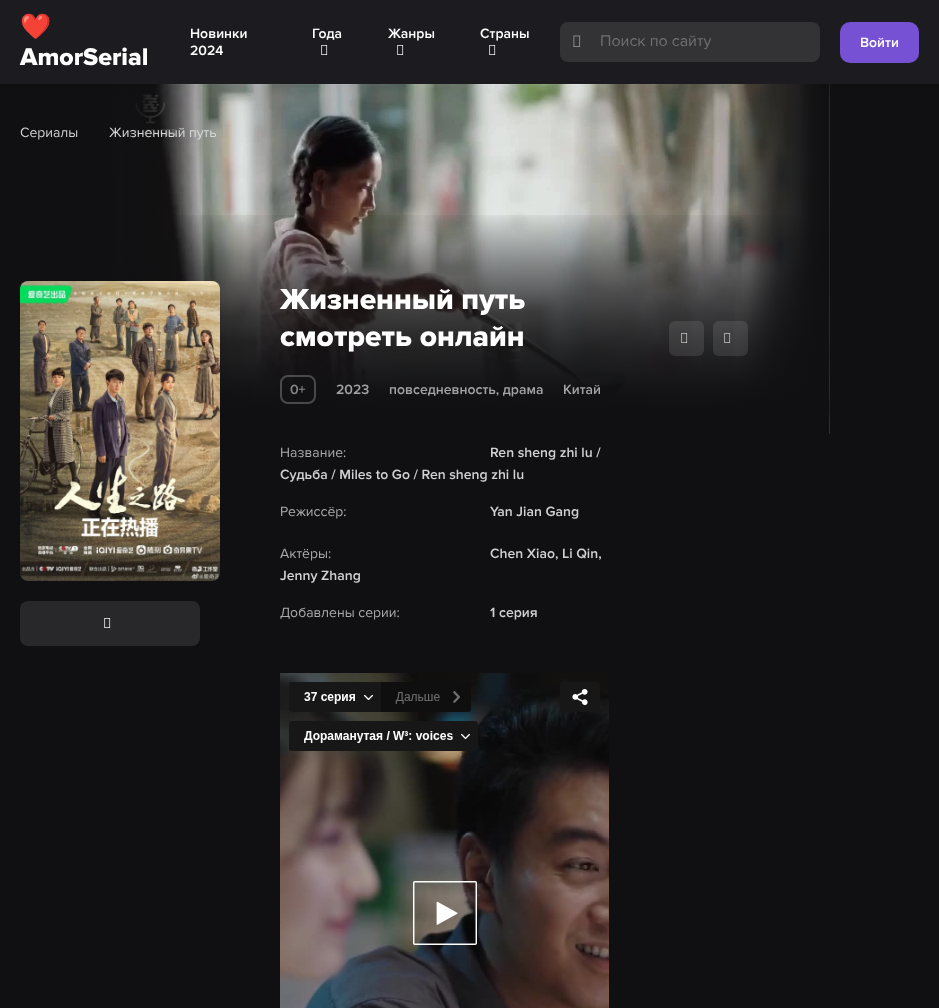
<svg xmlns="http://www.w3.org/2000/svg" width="939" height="1008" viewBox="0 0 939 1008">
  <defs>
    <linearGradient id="g1" gradientUnits="userSpaceOnUse" x1="829" y1="259" x2="110" y2="259"><stop offset="0.87" stop-color="rgb(16,16,18)" stop-opacity="0"/><stop offset="1" stop-color="rgb(16,16,18)"/></linearGradient>
    <linearGradient id="g2" gradientUnits="userSpaceOnUse" x1="110" y1="259" x2="829" y2="259"><stop offset="0.87" stop-color="rgb(16,16,18)" stop-opacity="0"/><stop offset="1" stop-color="rgb(16,16,18)"/></linearGradient>
    <linearGradient id="g3" gradientUnits="userSpaceOnUse" x1="470" y1="84" x2="470" y2="434"><stop offset="0.36" stop-color="rgb(16,16,18)" stop-opacity="0"/><stop offset="0.96" stop-color="rgb(16,16,18)"/></linearGradient>
  </defs>
  <rect width="100%" height="100%" fill="rgb(16,16,18)"/>
  <rect x="0" y="0" width="939" height="84" fill="rgb(28,28,32)"/>
  <text x="20" y="35" font-family="Noto Color Emoji" font-size="25" font-weight="bold" fill="rgb(255,255,255)">❤️</text>
  <text x="20" y="65" font-family="Proxima Nova" font-size="25" font-weight="800" fill="rgb(255,255,255)">AmorSerial</text>
  <g font-family="Proxima Nova" font-size="14" font-weight="600" fill="rgb(255,255,255)">
    <text>
      <tspan x="190" y="38">Новинки</tspan>
      <tspan x="190" y="55">2024</tspan>
    </text>
    <text x="312" y="38">Года</text>
  </g>
  <image x="321" y="45" width="7" height="10" href="pic1.png"/>
  <text x="388" y="38" font-family="Proxima Nova" font-size="14" font-weight="600" fill="rgb(255,255,255)">Жанры</text>
  <image x="397" y="45" width="7" height="10" href="pic1.png"/>
  <text x="480" y="38" font-family="Proxima Nova" font-size="14" font-weight="600" fill="rgb(255,255,255)">Страны</text>
  <image x="489" y="45" width="7" height="10" href="pic1.png"/>
  <rect x="560" y="22" width="260" height="40" rx="8" fill="rgb(51,51,54)"/>
  <image x="573" y="35" width="8" height="12" href="pic2.png"/>
  <text x="600" y="46" font-family="Proxima Nova" font-size="16" fill="rgb(112,112,114)">Поиск по сайту</text>
  <rect x="840" y="22" width="79" height="41" rx="10" fill="rgb(118,81,211)"/>
  <text x="860" y="47" font-family="Proxima Nova" font-size="14" font-weight="600" fill="rgb(255,255,255)">Войти</text>
  <image x="111" y="84" width="719" height="350" href="pic3.png"/>
  <rect x="111" y="84" width="90" height="197" fill="url(#g1)"/>
  <rect x="738" y="84" width="90" height="335" fill="url(#g2)"/>
  <rect x="111" y="215" width="717" height="204" fill="url(#g3)"/>
  <rect x="124" y="84" width="77" height="197" fill="url(#g1)"/>
  <rect x="738" y="84" width="91" height="335" fill="url(#g2)"/>
  <rect x="111" y="215" width="718" height="219" fill="url(#g3)"/>
  <text x="20" y="137" font-family="Proxima Nova" font-size="14" fill="rgb(209,209,209)">Сериалы</text>
  <text x="109" y="137" font-family="Proxima Nova" font-size="14" fill="rgb(217,217,217)">Жизненный путь</text>
  <image x="20" y="281" width="200" height="300" href="pic4.png"/>
  <rect x="20" y="601" width="180" height="45" rx="8" fill="rgb(40,40,42)"/>
  <image x="104" y="618" width="7" height="10" href="pic5.png"/>
  <g font-family="Proxima Nova" font-size="30" font-weight="800" fill="rgb(255,255,255)">
    <text>
      <tspan x="280" y="309">Жизненный путь</tspan>
      <tspan x="280" y="346">смотреть онлайн</tspan>
    </text>
  </g>
  <rect x="281" y="376" width="34" height="27" rx="7" fill="none" stroke="rgba(255,255,255,0.24)" stroke-width="2"/>
  <text x="290" y="394" font-family="Proxima Nova" font-size="14" font-weight="600" fill="rgb(134,134,134)">0+</text>
  <g font-family="Proxima Nova" font-size="14" font-weight="600" fill="rgb(163,163,163)">
    <text x="336" y="394">2023</text>
    <text x="389" y="394">повседневность, драма</text>
    <text x="563" y="394">Китай</text>
  </g>
  <text x="280" y="457" font-family="Proxima Nova" font-size="14" fill="rgb(170,170,171)">Название:</text>
  <g font-family="Proxima Nova" font-size="14" font-weight="600" fill="rgb(209,209,209)">
    <text x="490" y="457">Ren sheng zhi lu /</text>
    <text x="280" y="479">Судьба / Miles to Go / Ren sheng zhi lu</text>
  </g>
  <text x="280" y="516" font-family="Proxima Nova" font-size="14" fill="rgb(170,170,171)">Режиссёр:</text>
  <text x="490" y="516" font-family="Proxima Nova" font-size="14" font-weight="600" fill="rgb(209,209,209)">Yan Jian Gang</text>
  <text x="280" y="558" font-family="Proxima Nova" font-size="14" fill="rgb(170,170,171)">Актёры:</text>
  <g font-family="Proxima Nova" font-size="14" font-weight="600" fill="rgb(209,209,209)">
    <text x="490" y="558">Chen Xiao, Li Qin,</text>
    <text x="280" y="580">Jenny Zhang</text>
  </g>
  <text x="280" y="617" font-family="Proxima Nova" font-size="14" fill="rgb(170,170,171)">Добавлены серии:</text>
  <text x="490" y="617" font-family="Proxima Nova" font-size="14" font-weight="600" fill="rgb(209,209,209)">1 серия</text>
  <image x="280" y="673" width="329" height="335" href="pic6.png"/>
  <rect x="669" y="321" width="35" height="35" rx="6" fill="rgba(255,255,255,0.1)"/>
  <image x="681" y="333" width="7" height="10" href="pic7.png"/>
  <rect x="713" y="321" width="35" height="35" rx="6" fill="rgba(255,255,255,0.1)"/>
  <image x="724" y="333" width="7" height="10" href="pic8.png"/>
</svg>
